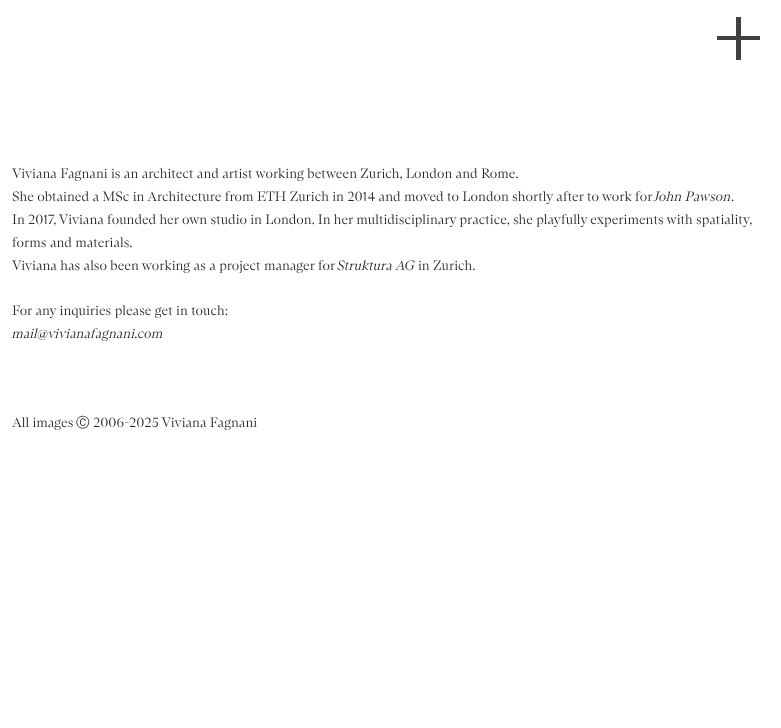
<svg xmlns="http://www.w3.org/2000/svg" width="781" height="728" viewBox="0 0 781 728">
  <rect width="100%" height="100%" fill="rgb(255,255,255)"/>
  <path d="M741 36V17H736V36H717V40H736V60H741V40H760V36Z" fill="rgb(64,64,64)"/>
  <g font-family="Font" font-size="13.63" font-weight="300" fill="rgb(38,38,38)">
    <text>
      <tspan x="12" y="178">Viviana Fagnani is an architect and artist working between Zurich, London and Rome.</tspan>
      <tspan x="12" y="201">She obtained a MSc in Architecture from ETH Zurich in 2014 and moved to London shortly after to work for</tspan>
    </text>
  </g>
  <text x="653" y="201" font-family="Font" font-size="13.63" font-weight="300" font-style="italic" fill="rgb(38,38,38)">John Pawson</text>
  <g font-family="Font" font-size="13.63" font-weight="300" fill="rgb(38,38,38)">
    <text x="731" y="201">.</text>
    <text>
      <tspan x="12" y="224" word-spacing="-0.1">In 2017, Viviana founded her own studio in London. In her multidisciplinary practice, she playfully experiments with spatiality,</tspan>
      <tspan x="12" y="247">forms and materials.</tspan>
      <tspan x="12" y="270">Viviana has also been working as a project manager for</tspan>
    </text>
  </g>
  <text x="337" y="270" font-family="Font" font-size="13.63" font-weight="300" font-style="italic" fill="rgb(38,38,38)">Struktura AG</text>
  <g font-family="Font" font-size="13.63" font-weight="300" fill="rgb(38,38,38)">
    <text x="418" y="270">in Zurich.</text>
    <text x="12" y="315">For any inquiries please get in touch:</text>
  </g>
  <text x="12" y="338" font-family="Font" font-size="13.63" font-weight="300" font-style="italic" fill="rgb(38,38,38)">mail@vivianafagnani.com</text>
  <text x="12" y="427" font-family="Font" font-size="13.63" font-weight="300" fill="rgb(38,38,38)">All images</text>
  <text x="76" y="427" font-family="WenQuanYi Zen Hei" font-size="13.63" font-weight="500" fill="rgb(38,38,38)">Ⓒ</text>
  <text x="93" y="427" font-family="Font" font-size="13.63" font-weight="300" fill="rgb(38,38,38)">2006-2025 Viviana Fagnani</text>
</svg>
